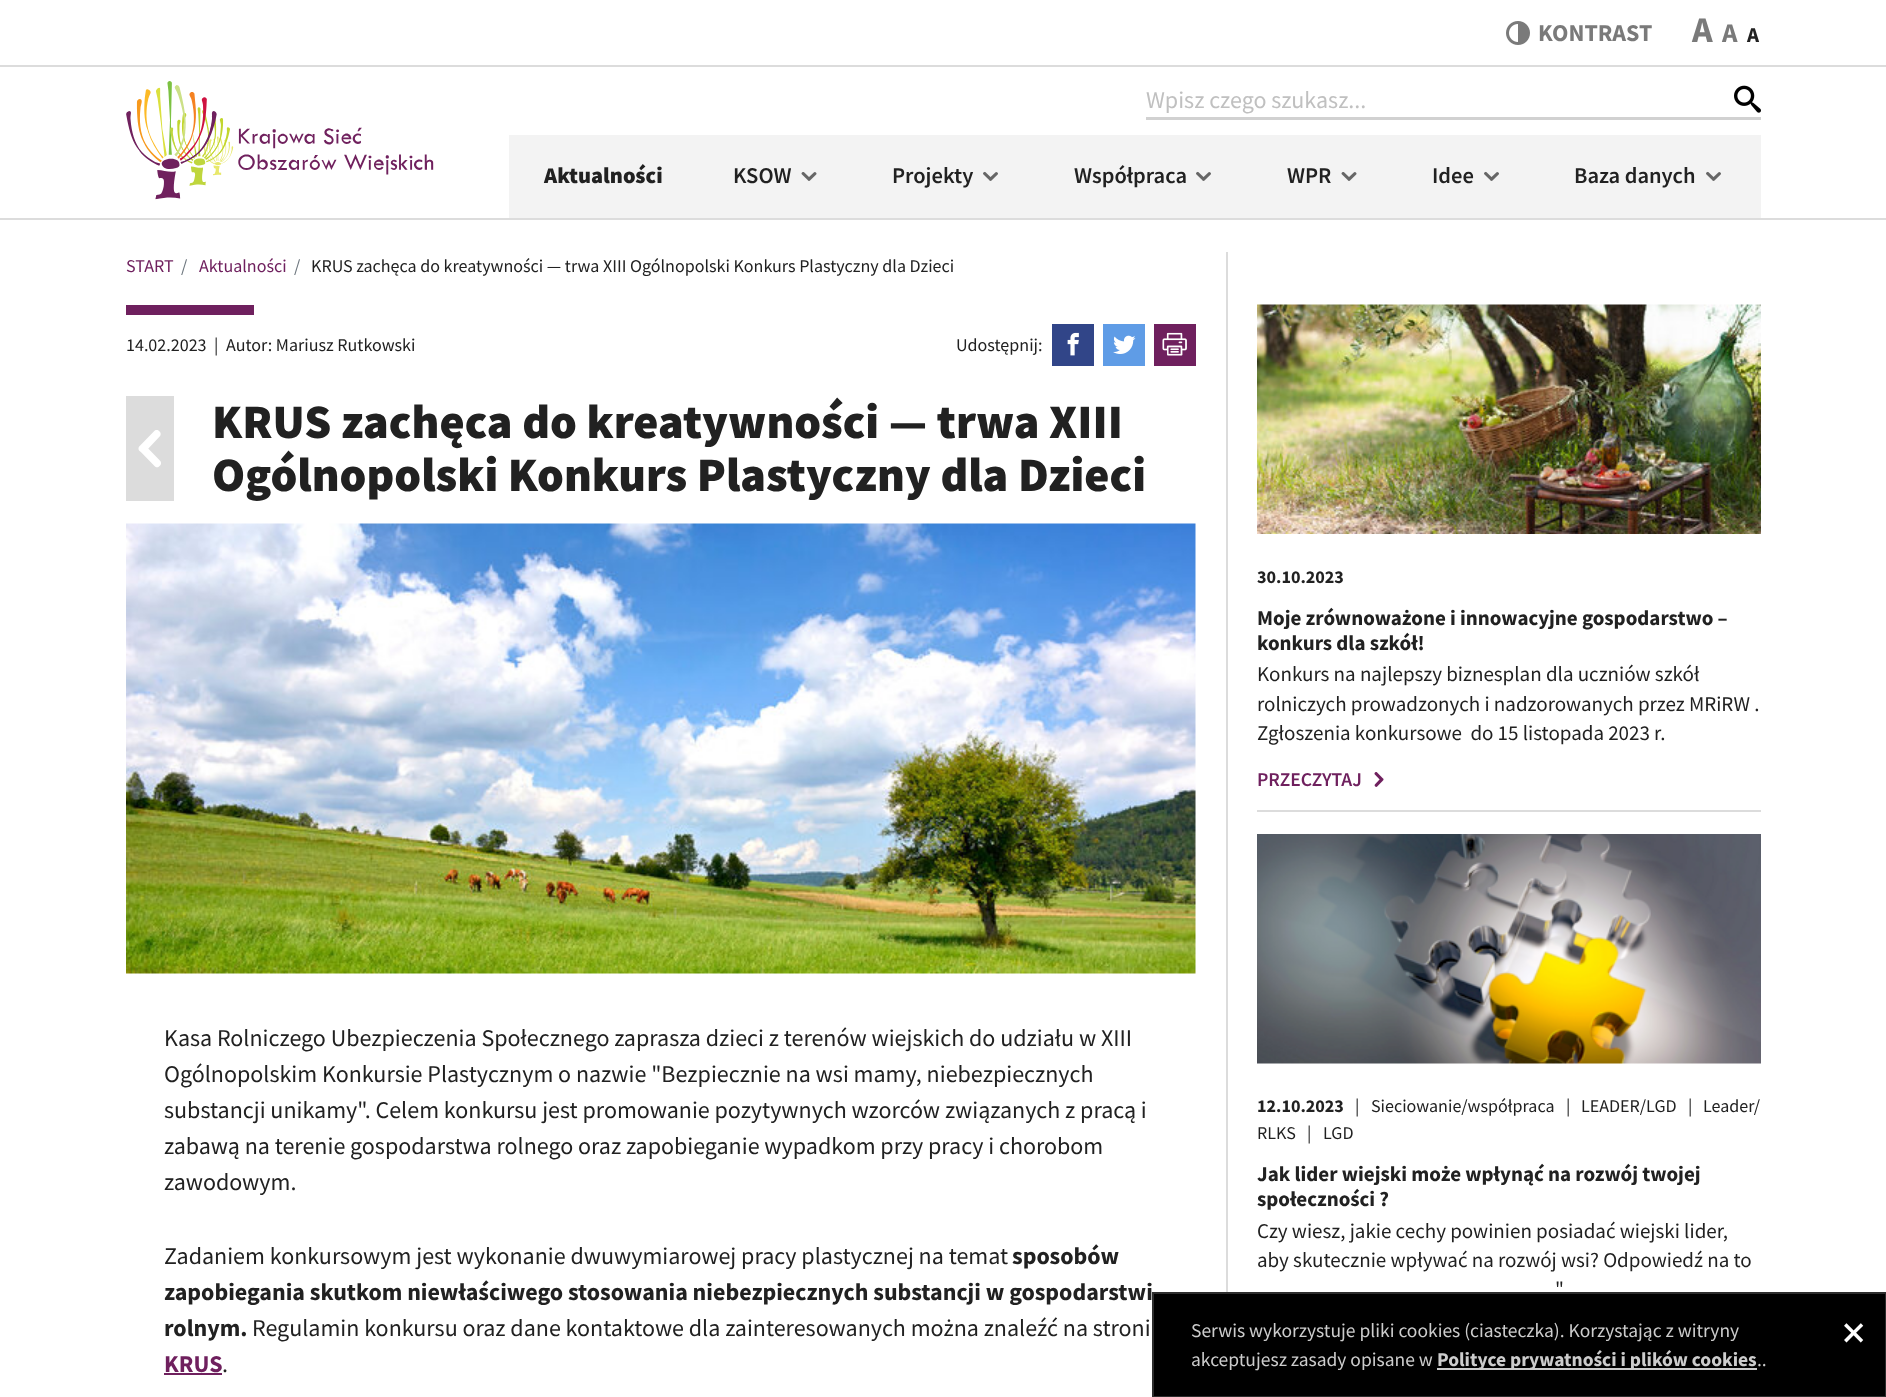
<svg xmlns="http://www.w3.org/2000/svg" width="1886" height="1397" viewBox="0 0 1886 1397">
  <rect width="100%" height="100%" fill="rgb(255,255,255)"/>
  <rect x="0" y="65" width="1886" height="2" fill="rgb(220,220,220)"/>
  <image x="1506" y="21" width="24" height="24" href="pic1.png"/>
  <text x="1538" y="41" font-family="Source Sans Pro" font-size="24" font-weight="bold" fill="rgb(122,122,122)">KONTRAST</text>
  <text x="1692" y="42" font-family="Source Sans Pro" font-size="36" font-weight="bold" fill="rgb(122,122,122)">A</text>
  <text x="1722" y="42" font-family="Source Sans Pro" font-size="27" font-weight="bold" fill="rgb(122,122,122)">A</text>
  <text x="1747" y="42" font-family="Source Sans Pro" font-size="21" font-weight="bold" fill="rgb(33,33,33)">A</text>
  <rect x="0" y="218" width="1886" height="2" fill="rgb(220,220,220)"/>
  <image x="126" y="81" width="308" height="119" href="pic2.png"/>
  <rect x="1146" y="117" width="615" height="3" fill="rgb(209,209,209)"/>
  <text x="1146" y="108" font-family="Source Sans Pro" font-size="24" fill="rgb(192,192,192)">Wpisz czego szukasz...</text>
  <image x="1734" y="85" width="27" height="28" href="pic3.png"/>
  <rect x="509" y="135" width="1252" height="83" fill="rgb(243,243,243)"/>
  <text x="544" y="183" font-family="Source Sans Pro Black" font-size="22.5" font-weight="900" fill="rgb(33,33,33)">Aktualności</text>
  <text x="733" y="183" font-family="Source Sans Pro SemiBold" font-size="22.5" font-weight="600" fill="rgb(33,33,33)">KSOW</text>
  <image x="801" y="172" width="16" height="9" href="pic4.png"/>
  <text x="892" y="183" font-family="Source Sans Pro SemiBold" font-size="22.5" font-weight="600" fill="rgb(33,33,33)">Projekty</text>
  <image x="983" y="171" width="15" height="10" href="pic5.png"/>
  <text x="1074" y="183" font-family="Source Sans Pro SemiBold" font-size="22.5" font-weight="600" fill="rgb(33,33,33)">Współpraca</text>
  <image x="1196" y="171" width="15" height="10" href="pic5.png"/>
  <text x="1287" y="183" font-family="Source Sans Pro SemiBold" font-size="22.5" font-weight="600" fill="rgb(33,33,33)">WPR</text>
  <image x="1341" y="172" width="16" height="9" href="pic4.png"/>
  <text x="1432" y="183" font-family="Source Sans Pro SemiBold" font-size="22.5" font-weight="600" fill="rgb(33,33,33)">Idee</text>
  <image x="1484" y="171" width="15" height="10" href="pic5.png"/>
  <text x="1574" y="183" font-family="Source Sans Pro SemiBold" font-size="22.5" font-weight="600" fill="rgb(33,33,33)">Baza danych</text>
  <image x="1706" y="171" width="15" height="10" href="pic5.png"/>
  <text x="126" y="272" font-family="Source Sans Pro" font-size="18" fill="rgb(111,32,94)">START</text>
  <text x="181" y="272" font-family="Source Sans Pro" font-size="18" fill="rgb(108,117,125)">/</text>
  <text x="199" y="272" font-family="Source Sans Pro" font-size="18" fill="rgb(111,32,94)">Aktualności</text>
  <text x="294" y="272" font-family="Source Sans Pro" font-size="18" fill="rgb(108,117,125)">/</text>
  <text x="311" y="272" font-family="Source Sans Pro" font-size="18" fill="rgb(33,33,33)">KRUS zachęca do kreatywności — trwa XIII Ogólnopolski Konkurs Plastyczny dla Dzieci</text>
  <rect x="126" y="305" width="128" height="10" fill="rgb(111,32,94)"/>
  <g font-family="Source Sans Pro" font-size="18" fill="rgb(33,33,33)">
    <text x="126" y="351">14.02.2023</text>
    <text x="214" y="351">|</text>
    <text x="226" y="351">Autor: Mariusz Rutkowski</text>
    <text x="956" y="351">Udostępnij:</text>
  </g>
  <rect x="1052" y="324" width="42" height="42" fill="rgb(49,69,136)"/>
  <image x="1067" y="332" width="12" height="24" href="pic6.png"/>
  <rect x="1103" y="324" width="42" height="42" fill="rgb(95,156,230)"/>
  <image x="1113" y="335" width="23" height="19" href="pic7.png"/>
  <rect x="1154" y="324" width="42" height="42" fill="rgb(111,32,94)"/>
  <image x="1162" y="332" width="25" height="24" href="pic8.png"/>
  <rect x="126" y="396" width="48" height="105" fill="rgb(220,220,220)"/>
  <image x="138" y="430" width="23" height="38" href="pic9.png"/>
  <g font-family="Source Sans Pro Black" font-size="48" font-weight="900" fill="rgb(33,33,33)">
    <text>
      <tspan x="212" y="438">KRUS zachęca do kreatywności — trwa XIII</tspan>
      <tspan x="212" y="491">Ogólnopolski Konkurs Plastyczny dla Dzieci</tspan>
    </text>
  </g>
  <image x="126" y="523" width="1070" height="451" href="pic10.png"/>
  <g font-family="Source Sans Pro" font-size="24" fill="rgb(33,33,33)">
    <text>
      <tspan x="164" y="1046">Kasa Rolniczego Ubezpieczenia Społecznego zaprasza dzieci z terenów wiejskich do udziału w XIII</tspan>
      <tspan x="164" y="1082">Ogólnopolskim Konkursie Plastycznym o nazwie "Bezpiecznie na wsi mamy, niebezpiecznych</tspan>
      <tspan x="164" y="1118">substancji unikamy". Celem konkursu jest promowanie pozytywnych wzorców związanych z pracą i</tspan>
      <tspan x="164" y="1154">zabawą na terenie gospodarstwa rolnego oraz zapobieganie wypadkom przy pracy i chorobom</tspan>
      <tspan x="164" y="1190">zawodowym.</tspan>
    </text>
    <text x="164" y="1264">Zadaniem konkursowym jest wykonanie dwuwymiarowej pracy plastycznej na temat</text>
  </g>
  <g font-family="Source Sans Pro" font-size="24" font-weight="bold" fill="rgb(33,33,33)">
    <text x="1012" y="1264">sposobów</text>
    <text>
      <tspan x="164" y="1300">zapobiegania skutkom niewłaściwego stosowania niebezpiecznych substancji w gospodarstwi</tspan>
      <tspan x="164" y="1336">rolnym.</tspan>
    </text>
  </g>
  <text x="252" y="1336" font-family="Source Sans Pro" font-size="24" fill="rgb(33,33,33)">Regulamin konkursu oraz dane kontaktowe dla zainteresowanych można znaleźć na stroni</text>
  <text x="164" y="1372" font-family="Source Sans Pro" font-size="24" font-weight="bold" fill="rgb(111,32,94)">KRUS</text>
  <rect x="164" y="1373" width="58" height="2" fill="rgb(111,32,94)"/>
  <text x="222" y="1372" font-family="Source Sans Pro" font-size="24" fill="rgb(33,33,33)">.</text>
  <rect x="1226" y="252" width="2" height="1040" fill="rgb(220,220,220)"/>
  <image x="1257" y="304" width="504" height="230" href="pic11.png"/>
  <text x="1257" y="583" font-family="Source Sans Pro" font-size="18" font-weight="bold" fill="rgb(33,33,33)">30.10.2023</text>
  <g font-family="Source Sans Pro" font-size="21" font-weight="bold" fill="rgb(33,33,33)">
    <text>
      <tspan x="1257" y="625">Moje zrównoważone i innowacyjne gospodarstwo –</tspan>
      <tspan x="1257" y="650">konkurs dla szkół!</tspan>
    </text>
  </g>
  <g font-family="Source Sans Pro" font-size="21" fill="rgb(33,33,33)">
    <text xml:space="preserve"><tspan x="1257" y="681">Konkurs na najlepszy biznesplan dla uczniów szkół</tspan><tspan x="1257" y="711">rolniczych prowadzonych i nadzorowanych przez MRiRW .</tspan><tspan x="1257" y="740">Zgłoszenia konkursowe  do 15 listopada 2023 r.</tspan></text>
  </g>
  <text x="1257" y="786" font-family="Source Sans Pro SemiBold" font-size="19.5" font-weight="600" fill="rgb(111,32,94)">PRZECZYTAJ</text>
  <image x="1374" y="772" width="10" height="15" href="pic12.png"/>
  <rect x="1257" y="810" width="504" height="2" fill="rgb(220,220,220)"/>
  <image x="1257" y="834" width="504" height="230" href="pic13.png"/>
  <text x="1257" y="1112" font-family="Source Sans Pro" font-size="18" font-weight="bold" fill="rgb(33,33,33)">12.10.2023</text>
  <g font-family="Source Sans Pro" font-size="18" fill="rgb(33,33,33)">
    <text x="1355" y="1112">|</text>
    <text x="1371" y="1112">Sieciowanie/współpraca</text>
    <text x="1566" y="1112">|</text>
    <text x="1581" y="1112">LEADER/LGD</text>
    <text x="1688" y="1112">|</text>
    <text x="1703" y="1112">Leader/</text>
    <text x="1257" y="1139">RLKS</text>
    <text x="1307" y="1139">|</text>
    <text x="1323" y="1139">LGD</text>
  </g>
  <g font-family="Source Sans Pro" font-size="21" font-weight="bold" fill="rgb(33,33,33)">
    <text>
      <tspan x="1257" y="1181">Jak lider wiejski może wpłynąć na rozwój twojej</tspan>
      <tspan x="1257" y="1206">społeczności ?</tspan>
    </text>
  </g>
  <g font-family="Source Sans Pro" font-size="21" fill="rgb(33,33,33)">
    <text>
      <tspan x="1257" y="1238">Czy wiesz, jakie cechy powinien posiadać wiejski lider,</tspan>
      <tspan x="1257" y="1267">aby skutecznie wpływać na rozwój wsi? Odpowiedź na to</tspan>
    </text>
    <text x="1555" y="1296">"</text>
  </g>
  <rect x="1153" y="1293" width="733" height="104" fill="rgb(0,0,0)" stroke="rgb(45,45,45)" stroke-width="2"/>
  <g font-family="Source Sans Pro" font-size="19.5" fill="rgb(204,204,204)">
    <text>
      <tspan x="1191" y="1337">Serwis wykorzystuje pliki cookies (ciasteczka). Korzystając z witryny</tspan>
      <tspan x="1191" y="1366">akceptujesz zasady opisane w</tspan>
    </text>
  </g>
  <rect x="1437" y="1368" width="320" height="2" fill="rgb(204,204,204)"/>
  <text x="1437" y="1366" font-family="Source Sans Pro" font-size="19.5" font-weight="bold" fill="rgb(204,204,204)">Polityce prywatności i plików cookies</text>
  <text x="1757" y="1366" font-family="Source Sans Pro" font-size="19.5" fill="rgb(204,204,204)">..</text>
  <text x="1841" y="1346" font-family="DejaVu Sans Mono" font-size="42" fill="rgb(255,255,255)">×</text>
</svg>
